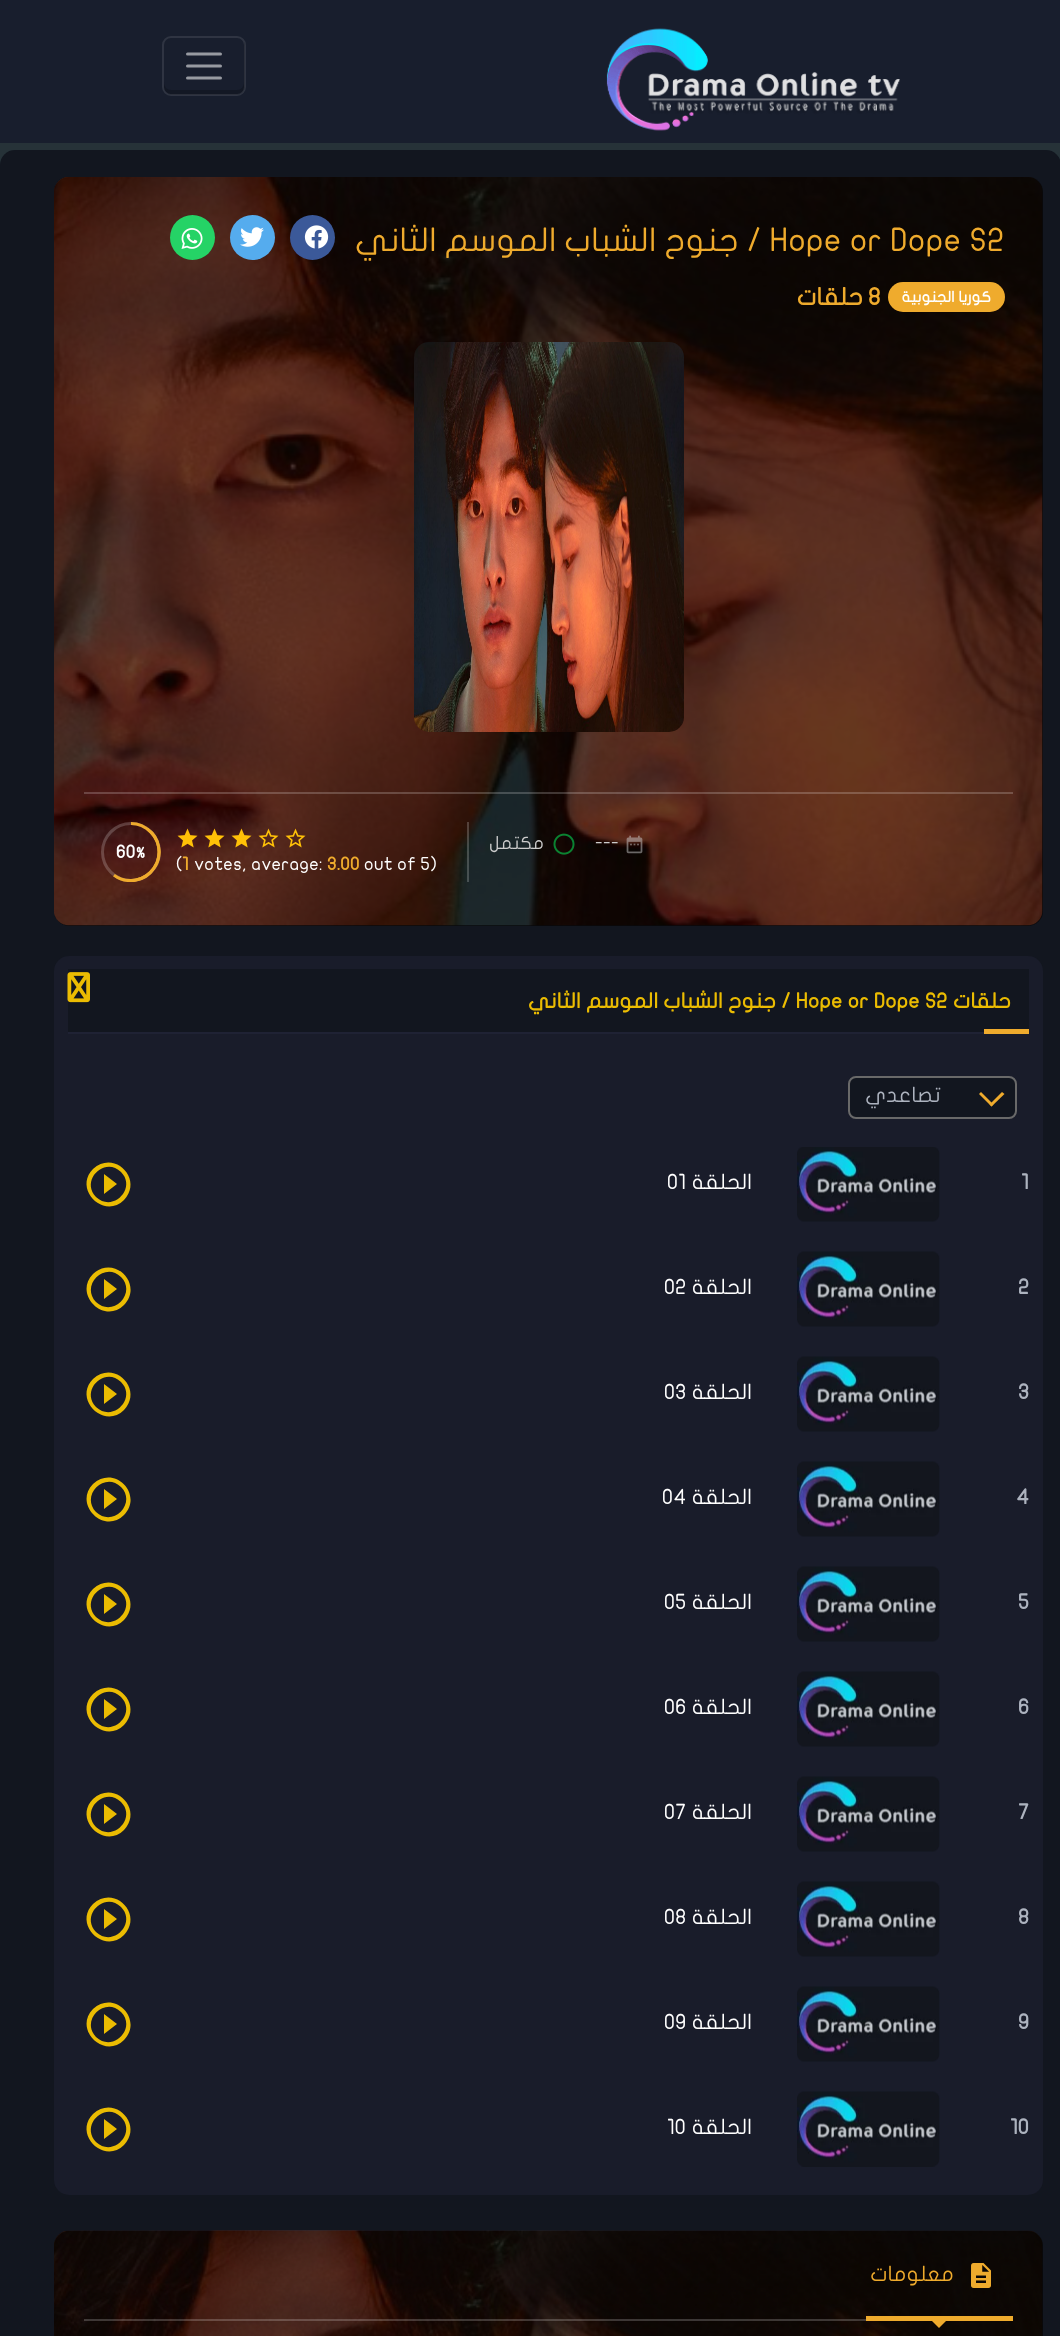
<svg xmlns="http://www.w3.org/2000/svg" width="1060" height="2336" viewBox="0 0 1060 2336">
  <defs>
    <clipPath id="clip1"><rect x="101" y="822" width="60" height="60"/></clipPath>
    <clipPath id="clip2"><path d="M137 894L113 876.5L148 827.5L172.5 845.5Z"/></clipPath>
    <clipPath id="clip3"><rect x="131" y="822" width="30" height="60"/></clipPath>
  </defs>
  <rect width="100%" height="100%" fill="rgb(38,50,56)"/>
  <rect x="0" y="0" width="1060" height="143" fill="rgb(24,30,45)"/>
  <image x="606" y="28" width="294" height="103" href="pic1.png"/>
  <path d="M164 82V87C164 91 168 95 172 95H237C241 95 245 91 245 87V46C245 45 245 43 244 42V82C244 87 241 90 237 90H171C167 90 164 87 164 82Z" fill="rgb(19,24,36)"/>
  <rect x="163" y="37" width="82" height="58" rx="8" fill="none" stroke="rgba(255,255,255,0.1)" stroke-width="2"/>
  <path d="M187.5 54H220.5M187.5 66H220.5M187.5 78H220.5" fill="none" stroke="rgb(151,154,161)" stroke-width="3" stroke-linecap="round"/>
  <rect x="0" y="150" width="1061" height="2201" rx="15" fill="rgb(18,22,31)"/>
  <rect x="54" y="177" width="989" height="749" rx="15" fill="rgb(22,24,31)"/>
  <image x="54" y="177" width="989" height="749" href="pic2.png"/>
  <rect x="54" y="177" width="989" height="749" rx="15" fill="rgba(0,0,0,0.6)"/>
  <text x="770" y="251" font-family="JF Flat" font-size="32.5" fill="rgb(239,171,45)">Hope or Dope S2</text>
  <text x="762" y="251" font-family="JF Flat" font-size="32.5" direction="rtl" fill="rgb(239,171,45)">/ جنوح الشباب الموسم الثاني</text>
  <circle cx="312.5" cy="237.5" r="22.5" fill="rgb(59,89,153)"/>
  <image x="304" y="225" width="25" height="24" href="pic3.png"/>
  <circle cx="252.5" cy="237.5" r="22.5" fill="rgb(85,172,238)"/>
  <image x="240" y="227" width="24" height="20" href="pic4.png"/>
  <circle cx="192.5" cy="237.5" r="22.5" fill="rgb(37,211,102)"/>
  <image x="181" y="228" width="22" height="21" href="pic5.png"/>
  <rect x="888" y="282" width="117" height="30" rx="15" fill="rgb(239,171,45)"/>
  <text x="991" y="302" font-family="JF Flat" font-size="15" font-weight="bold" direction="rtl" fill="rgb(255,255,255)">كوريا الجنوبية</text>
  <text x="868" y="305" font-family="JF Flat" font-size="24" font-weight="bold" fill="rgb(239,171,45)">8</text>
  <text x="863" y="305" font-family="JF Flat" font-size="24" font-weight="bold" direction="rtl" fill="rgb(239,171,45)">حلقات</text>
  <image x="414" y="342" width="270" height="390" href="pic6.png"/>
  <rect x="84" y="792" width="929" height="2" fill="rgba(255,255,255,0.2)"/>
  <image x="626" y="835" width="17" height="19" href="pic7.png"/>
  <text x="595" y="849" font-family="JF Flat" font-size="18" fill="rgb(204,204,204)">---</text>
  <image x="553" y="833" width="22" height="22" href="pic8.png"/>
  <text x="544" y="849" font-family="JF Flat" font-size="18" direction="rtl" fill="rgb(204,204,204)">مكتمل</text>
  <rect x="467" y="822" width="2" height="60" fill="rgba(255,255,255,0.2)"/>
  <circle cx="131" cy="852" r="28.5" fill="none" stroke="rgba(255,255,255,0.2)" stroke-width="3"/>
  <g clip-path="url(#clip1)">
    <g clip-path="url(#clip2)">
      <path d="M113.5 875C101 866 98 848 107.5 835C116.5 822.5 134.5 819.5 147.5 829C160 838 163 856 153.5 869C144.5 881.5 126.5 884.5 113.5 875Z" fill="none" stroke="rgb(239,171,45)" stroke-width="3"/>
    </g>
  </g>
  <g clip-path="url(#clip3)">
    <path d="M130.5 880.5C115 880.5 102 867.5 102 852C102 836.5 115 823.5 130.5 823.5C146 823.5 159 836.5 159 852C159 867.5 146 880.5 130.5 880.5Z" fill="none" stroke="rgb(239,171,45)" stroke-width="3"/>
  </g>
  <text x="136" y="858" font-family="JF Flat" font-size="15" font-weight="bold" fill="rgb(255,255,255)">%</text>
  <text x="116" y="858" font-family="JF Flat" font-size="18" font-weight="bold" fill="rgb(255,255,255)">60</text>
  <image x="285" y="828" width="21" height="20" href="pic9.png"/>
  <image x="258" y="828" width="21" height="20" href="pic10.png"/>
  <image x="231" y="828" width="21" height="20" href="pic11.png"/>
  <image x="204" y="828" width="21" height="20" href="pic12.png"/>
  <image x="177" y="828" width="21" height="20" href="pic13.png"/>
  <text x="364" y="870" font-family="JF Flat" font-size="18" fill="rgb(255,255,255)">out of 5)</text>
  <text x="327" y="870" font-family="JF Flat" font-size="18" font-weight="bold" fill="rgb(239,171,45)">3.00</text>
  <text x="194" y="870" font-family="JF Flat" font-size="18" fill="rgb(255,255,255)">votes, average:</text>
  <text x="182" y="870" font-family="JF Flat" font-size="18" font-weight="bold" fill="rgb(239,171,45)">1</text>
  <text x="176" y="870" font-family="JF Flat" font-size="18" fill="rgb(255,255,255)">(</text>
  <rect x="54" y="956" width="989" height="1239" rx="15" fill="rgb(25,28,42)"/>
  <rect x="68" y="969" width="961" height="63" fill="rgb(18,22,31)"/>
  <text x="1011" y="1008" font-family="JF Flat" font-size="21" font-weight="bold" direction="rtl" fill="rgb(235,188,2)">حلقات</text>
  <text x="796" y="1008" font-family="JF Flat" font-size="21" font-weight="bold" fill="rgb(235,188,2)">Hope or Dope S2</text>
  <text x="791" y="1008" font-family="JF Flat" font-size="21" font-weight="bold" direction="rtl" fill="rgb(235,188,2)">/ جنوح الشباب الموسم الثاني</text>
  <image x="67" y="972" width="23" height="31" href="pic14.png"/>
  <rect x="984" y="1029" width="45" height="5" fill="rgb(239,171,45)"/>
  <rect x="68" y="1032" width="916" height="2" fill="rgb(31,34,52)"/>
  <rect x="849" y="1077" width="167" height="41" rx="7" fill="rgb(18,22,31)" stroke="rgb(105,105,105)" stroke-width="2"/>
  <path d="M991.5 1106.5L979 1094L981 1092L993.5 1104.5Z" fill="rgb(239,171,45)"/>
  <path d="M991.5 1106.5L989.5 1104.5L1002 1092L1004.5 1094Z" fill="rgb(239,171,45)"/>
  <text x="941" y="1102" font-family="JF Flat" font-size="21" direction="rtl" fill="rgb(173,179,191)">تصاعدي</text>
  <text x="1021" y="1189" font-family="JF Flat" font-size="21" font-weight="bold" fill="rgb(173,179,191)">1</text>
  <image x="797" y="1147" width="143" height="75" href="pic15.png"/>
  <text x="752" y="1189" font-family="JF Flat" font-size="21" direction="rtl" fill="rgb(255,255,255)">الحلقة</text>
  <text x="667" y="1189" font-family="JF Flat" font-size="21" fill="rgb(255,255,255)">01</text>
  <path d="M96 1197C113 1213 137 1188 121 1172C105 1156 80 1180 96 1197ZM93 1169C114 1149 144 1179 124 1200C104 1220 73 1189 93 1169ZM104 1194V1174L117 1184Z" fill="rgb(235,188,2)"/>
  <text x="1018" y="1294" font-family="JF Flat" font-size="21" font-weight="bold" fill="rgb(173,179,191)">2</text>
  <image x="797" y="1251" width="143" height="76" href="pic16.png"/>
  <text x="752" y="1294" font-family="JF Flat" font-size="21" direction="rtl" fill="rgb(255,255,255)">الحلقة</text>
  <text x="664" y="1294" font-family="JF Flat" font-size="21" fill="rgb(255,255,255)">02</text>
  <path d="M96 1302C113 1318 137 1293 121 1277C105 1261 80 1285 96 1302ZM93 1274C114 1254 144 1284 124 1305C104 1325 73 1294 93 1274ZM104 1299V1279L117 1289Z" fill="rgb(235,188,2)"/>
  <text x="1018" y="1399" font-family="JF Flat" font-size="21" font-weight="bold" fill="rgb(173,179,191)">3</text>
  <image x="797" y="1356" width="143" height="76" href="pic16.png"/>
  <text x="752" y="1399" font-family="JF Flat" font-size="21" direction="rtl" fill="rgb(255,255,255)">الحلقة</text>
  <text x="664" y="1399" font-family="JF Flat" font-size="21" fill="rgb(255,255,255)">03</text>
  <path d="M96 1407C113 1423 137 1398 121 1382C105 1366 80 1390 96 1407ZM93 1379C114 1359 144 1389 124 1410C104 1430 73 1399 93 1379ZM104 1404V1384L117 1394Z" fill="rgb(235,188,2)"/>
  <text x="1016" y="1504" font-family="JF Flat" font-size="21" font-weight="bold" fill="rgb(173,179,191)">4</text>
  <image x="797" y="1461" width="143" height="76" href="pic16.png"/>
  <text x="752" y="1504" font-family="JF Flat" font-size="21" direction="rtl" fill="rgb(255,255,255)">الحلقة</text>
  <text x="662" y="1504" font-family="JF Flat" font-size="21" fill="rgb(255,255,255)">04</text>
  <path d="M96 1512C113 1528 137 1503 121 1487C105 1471 80 1495 96 1512ZM93 1484C114 1464 144 1494 124 1515C104 1535 73 1504 93 1484ZM104 1509V1489L117 1499Z" fill="rgb(235,188,2)"/>
  <text x="1018" y="1609" font-family="JF Flat" font-size="21" font-weight="bold" fill="rgb(173,179,191)">5</text>
  <image x="797" y="1566" width="143" height="76" href="pic16.png"/>
  <text x="752" y="1609" font-family="JF Flat" font-size="21" direction="rtl" fill="rgb(255,255,255)">الحلقة</text>
  <text x="664" y="1609" font-family="JF Flat" font-size="21" fill="rgb(255,255,255)">05</text>
  <path d="M96 1617C113 1633 137 1608 121 1592C105 1576 80 1600 96 1617ZM93 1589C114 1569 144 1599 124 1620C104 1640 73 1609 93 1589ZM104 1614V1594L117 1604Z" fill="rgb(235,188,2)"/>
  <text x="1018" y="1714" font-family="JF Flat" font-size="21" font-weight="bold" fill="rgb(173,179,191)">6</text>
  <image x="797" y="1671" width="143" height="76" href="pic16.png"/>
  <text x="752" y="1714" font-family="JF Flat" font-size="21" direction="rtl" fill="rgb(255,255,255)">الحلقة</text>
  <text x="664" y="1714" font-family="JF Flat" font-size="21" fill="rgb(255,255,255)">06</text>
  <path d="M96 1722C113 1738 137 1713 121 1697C105 1681 80 1705 96 1722ZM93 1694C114 1674 144 1704 124 1725C104 1745 73 1714 93 1694ZM104 1719V1699L117 1709Z" fill="rgb(235,188,2)"/>
  <text x="1018" y="1819" font-family="JF Flat" font-size="21" font-weight="bold" fill="rgb(173,179,191)">7</text>
  <image x="797" y="1776" width="143" height="76" href="pic16.png"/>
  <text x="752" y="1819" font-family="JF Flat" font-size="21" direction="rtl" fill="rgb(255,255,255)">الحلقة</text>
  <text x="664" y="1819" font-family="JF Flat" font-size="21" fill="rgb(255,255,255)">07</text>
  <path d="M96 1827C113 1843 137 1818 121 1802C105 1786 80 1810 96 1827ZM93 1799C114 1779 144 1809 124 1830C104 1850 73 1819 93 1799ZM104 1824V1804L117 1814Z" fill="rgb(235,188,2)"/>
  <text x="1018" y="1924" font-family="JF Flat" font-size="21" font-weight="bold" fill="rgb(173,179,191)">8</text>
  <image x="797" y="1881" width="143" height="76" href="pic16.png"/>
  <text x="752" y="1924" font-family="JF Flat" font-size="21" direction="rtl" fill="rgb(255,255,255)">الحلقة</text>
  <text x="664" y="1924" font-family="JF Flat" font-size="21" fill="rgb(255,255,255)">08</text>
  <path d="M96 1932C113 1948 137 1923 121 1907C105 1891 80 1915 96 1932ZM93 1904C114 1884 144 1914 124 1935C104 1955 73 1924 93 1904ZM104 1929V1909L117 1919Z" fill="rgb(235,188,2)"/>
  <text x="1018" y="2029" font-family="JF Flat" font-size="21" font-weight="bold" fill="rgb(173,179,191)">9</text>
  <image x="797" y="1986" width="143" height="76" href="pic16.png"/>
  <text x="752" y="2029" font-family="JF Flat" font-size="21" direction="rtl" fill="rgb(255,255,255)">الحلقة</text>
  <text x="664" y="2029" font-family="JF Flat" font-size="21" fill="rgb(255,255,255)">09</text>
  <path d="M96 2037C113 2053 137 2028 121 2012C105 1996 80 2020 96 2037ZM93 2009C114 1989 144 2019 124 2040C104 2060 73 2029 93 2009ZM104 2034V2014L117 2024Z" fill="rgb(235,188,2)"/>
  <text x="1010" y="2134" font-family="JF Flat" font-size="21" font-weight="bold" fill="rgb(173,179,191)">10</text>
  <image x="797" y="2091" width="143" height="76" href="pic17.png"/>
  <text x="752" y="2134" font-family="JF Flat" font-size="21" direction="rtl" fill="rgb(255,255,255)">الحلقة</text>
  <text x="667" y="2134" font-family="JF Flat" font-size="21" fill="rgb(255,255,255)">10</text>
  <path d="M96 2142C113 2158 137 2133 121 2117C105 2101 80 2125 96 2142ZM93 2114C114 2094 144 2124 124 2145C104 2165 73 2134 93 2114ZM104 2139V2119L117 2129Z" fill="rgb(235,188,2)"/>
  <rect x="54" y="2231" width="989" height="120" rx="15" fill="rgb(22,24,31)"/>
  <image x="54" y="2230" width="989" height="106" href="pic18.png"/>
  <rect x="54" y="2231" width="989" height="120" rx="15" fill="rgba(0,0,0,0.6)"/>
  <rect x="84" y="2319" width="782" height="2" fill="rgba(255,255,255,0.2)"/>
  <rect x="866" y="2316" width="147" height="5" fill="rgb(239,171,45)"/>
  <image x="971" y="2263" width="20" height="25" href="pic19.png"/>
  <text x="954" y="2281" font-family="JF Flat" font-size="21" direction="rtl" fill="rgb(239,171,45)">معلومات</text>
  <path d="M931.5 2320.5H946.5L939 2328Z" fill="rgb(239,171,45)"/>
</svg>
